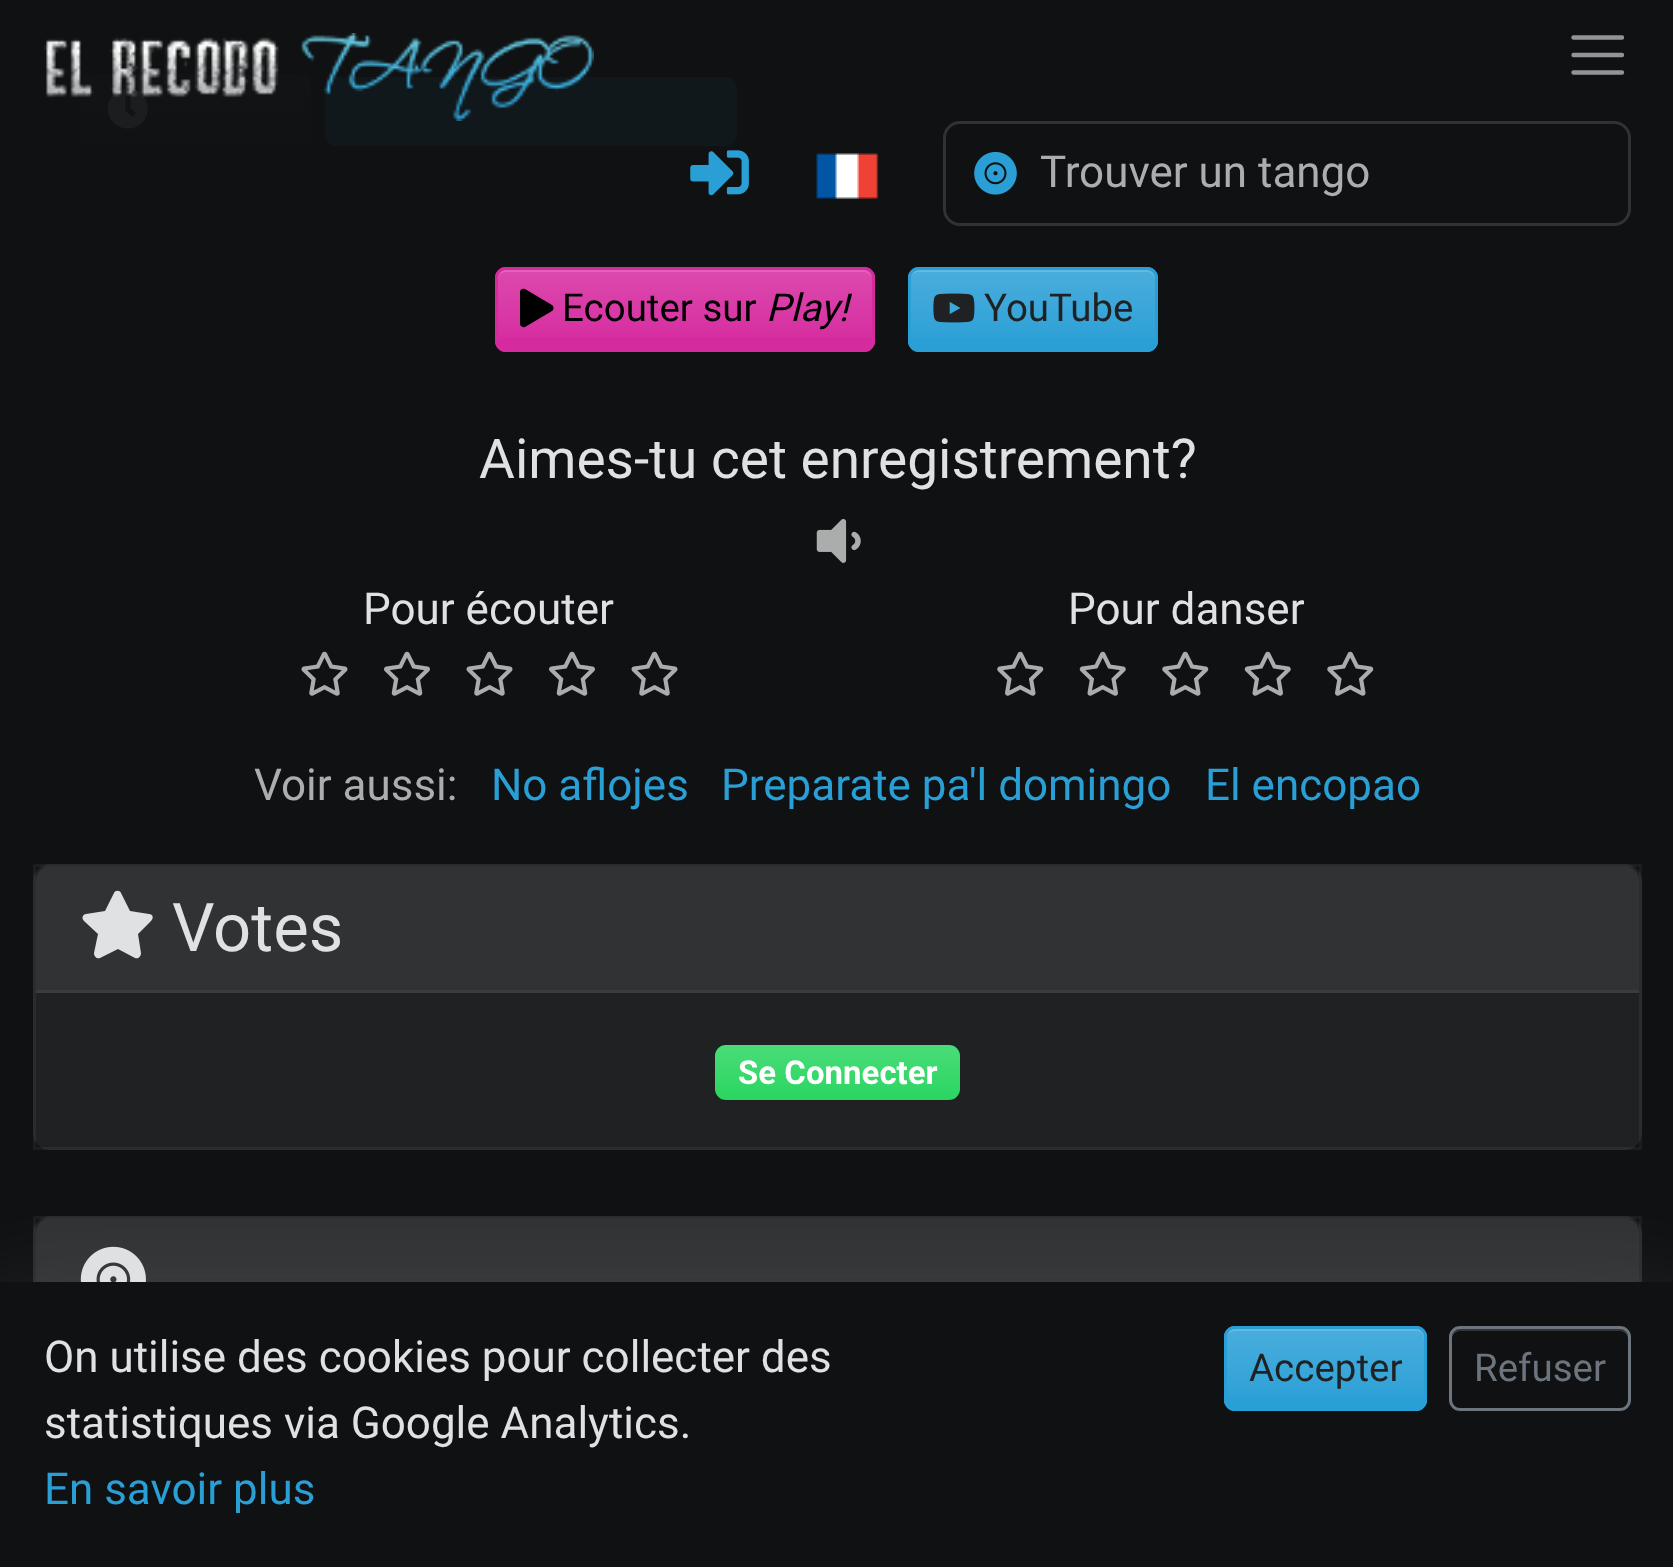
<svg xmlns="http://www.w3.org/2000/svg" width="1673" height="1567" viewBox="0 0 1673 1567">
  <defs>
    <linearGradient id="g1" gradientUnits="userSpaceOnUse" x1="195" y1="74" x2="195" y2="146"><stop offset="0" stop-color="rgb(18,19,21)"/><stop offset="1" stop-color="rgb(17,18,19)"/></linearGradient>
    <clipPath id="clip1"><rect x="495" y="267" width="380" height="85" rx="11"/></clipPath>
    <linearGradient id="g2" gradientUnits="userSpaceOnUse" x1="685" y1="269" x2="685" y2="349"><stop offset="0" stop-color="rgb(255,255,255)" stop-opacity="0.15"/><stop offset="1" stop-color="rgb(255,255,255)" stop-opacity="0"/></linearGradient>
    <clipPath id="clip2"><rect x="908" y="267" width="250" height="85" rx="11"/></clipPath>
    <linearGradient id="g3" gradientUnits="userSpaceOnUse" x1="1033" y1="270" x2="1033" y2="349"><stop offset="0" stop-color="rgb(255,255,255)" stop-opacity="0.15"/><stop offset="1" stop-color="rgb(255,255,255)" stop-opacity="0"/></linearGradient>
    <linearGradient id="g4" gradientUnits="userSpaceOnUse" x1="837" y1="1045" x2="837" y2="1100"><stop offset="0" stop-color="rgb(255,255,255)" stop-opacity="0.15"/><stop offset="1" stop-color="rgb(255,255,255)" stop-opacity="0"/></linearGradient>
    <clipPath id="clip3"><rect x="1224" y="1326" width="203" height="85" rx="11"/></clipPath>
    <linearGradient id="g5" gradientUnits="userSpaceOnUse" x1="1326" y1="1328" x2="1326" y2="1408"><stop offset="0" stop-color="rgb(255,255,255)" stop-opacity="0.15"/><stop offset="1" stop-color="rgb(255,255,255)" stop-opacity="0"/></linearGradient>
  </defs>
  <rect width="100%" height="100%" fill="rgb(16,17,18)"/>
  <rect x="80" y="74" width="231" height="72" rx="11" fill="url(#g1)"/>
  <image x="107" y="88" width="41" height="41" href="pic5.png"/>
  <rect x="325" y="77" width="412" height="69" rx="11" fill="rgb(17,24,28)"/>
  <image x="44" y="33" width="550" height="88" href="pic1.png"/>
  <path d="M1573.5 37.5H1622M1573.5 55H1622M1573.5 72.5H1622" fill="none" stroke="rgb(148,148,149)" stroke-width="4.4" stroke-linecap="round"/>
  <image x="690" y="150" width="59" height="46" href="pic2.png"/>
  <image x="816" y="153" width="63" height="46" href="pic3.png"/>
  <rect x="944.5" y="122.5" width="685" height="102" rx="15.5" fill="none" stroke="rgb(48,50,51)" stroke-width="3"/>
  <image x="974" y="151" width="43" height="44" href="pic4.png"/>
  <text x="1040" y="187" font-family="Roboto" font-size="44" fill="rgb(171,173,174)">Trouver un tango</text>
  <rect x="495" y="267" width="380" height="85" rx="11" fill="rgb(214,42,159)"/>
  <g clip-path="url(#clip1)">
    <rect x="495" y="270" width="380" height="67" fill="url(#g2)"/>
  </g>
  <path d="M506 272H864C868 272 872 276 872 280C872 275 870 270 864 270H504C499 271 498 276 498 280C498 276 501 272 506 272Z" fill="rgba(255,255,255,0.15)"/>
  <rect x="496.5" y="268.5" width="377" height="82" rx="9.5" fill="none" stroke="rgb(214,42,159)" stroke-width="3"/>
  <path d="M552 305L525 289C523 288 520 289 520 292V324C520 326 523 328 525 327L552 311C554 310 554 306 552 305Z" fill="rgb(0,0,0)"/>
  <text x="562" y="321" font-family="Roboto" font-size="38.5" fill="rgb(0,0,0)">Ecouter sur</text>
  <text x="766" y="321" font-family="Roboto" font-size="38.5" font-style="italic" fill="rgb(0,0,0)">Play!</text>
  <rect x="908" y="267" width="250" height="85" rx="11" fill="rgb(42,159,214)"/>
  <g clip-path="url(#clip2)">
    <rect x="908" y="270" width="250" height="68" fill="url(#g3)"/>
  </g>
  <path d="M918 272H1147C1151 272 1155 276 1155 280V278C1155 274 1151 270 1147 270H918C914 270 910 274 910 278V280C910 276 914 272 918 272Z" fill="rgba(255,255,255,0.15)"/>
  <rect x="909.5" y="268.5" width="247" height="82" rx="9.5" fill="none" stroke="rgb(42,159,214)" stroke-width="3"/>
  <image x="933" y="293" width="42" height="30" href="pic6.png"/>
  <text x="984" y="321" font-family="Roboto" font-size="38.5" fill="rgb(31,33,35)">YouTube</text>
  <text x="479" y="478" font-family="Roboto" font-size="55" fill="rgb(223,225,226)">Aimes-tu cet enregistrement?</text>
  <image x="816" y="519" width="45" height="44" href="pic7.png"/>
  <text x="363" y="624" font-family="Roboto" font-size="44" fill="rgb(223,225,226)">Pour écouter</text>
  <image x="301" y="651" width="47" height="45" href="pic8.png"/>
  <image x="384" y="651" width="46" height="45" href="pic9.png"/>
  <image x="466" y="651" width="47" height="45" href="pic8.png"/>
  <image x="549" y="651" width="46" height="45" href="pic9.png"/>
  <image x="631" y="651" width="47" height="45" href="pic8.png"/>
  <text x="1068" y="624" font-family="Roboto" font-size="44" fill="rgb(223,225,226)">Pour danser</text>
  <image x="997" y="651" width="47" height="45" href="pic10.png"/>
  <image x="1079" y="651" width="47" height="45" href="pic11.png"/>
  <image x="1162" y="651" width="47" height="45" href="pic10.png"/>
  <image x="1244" y="651" width="47" height="45" href="pic11.png"/>
  <image x="1327" y="651" width="47" height="45" href="pic10.png"/>
  <text x="254" y="800" font-family="Roboto" font-size="44" fill="rgb(171,173,174)">Voir aussi:</text>
  <g font-family="Roboto" font-size="44" fill="rgb(42,159,214)">
    <text x="491" y="800">No aflojes</text>
    <text x="721" y="800">Preparate pa'l domingo</text>
    <text x="1205" y="800">El encopao</text>
  </g>
  <rect x="33" y="864" width="1609" height="286" rx="17" fill="rgb(31,33,35)"/>
  <rect x="34.5" y="865.5" width="1606" height="283" fill="none" stroke="rgba(255,255,255,0.05)" stroke-width="3"/>
  <path d="M50 866H1625C1632.5 866 1639 872.5 1639 880V993H36V880C36 872.5 42.5 866 50 866Z" fill="rgb(48,50,51)"/>
  <rect x="36" y="990" width="1603" height="3" fill="rgb(58,60,61)"/>
  <path d="M114 893L105 911L86 914C83 914 81 918 84 921L98 934L94 953C94 957 97 959 100 958L118 949L135 958C138 959 141 957 141 953L138 934L151 921C154 918 153 914 149 914L130 911L121 893C120 890 115 890 114 893Z" fill="rgb(223,225,226)"/>
  <text x="172" y="951" font-family="Roboto" font-size="67" fill="rgb(223,225,226)">Votes</text>
  <rect x="715" y="1045" width="245" height="55" rx="11" fill="rgb(42,214,97)"/>
  <rect x="715" y="1045" width="245" height="55" rx="11" fill="url(#g4)"/>
  <text x="738" y="1084" font-family="Roboto" font-size="33" font-weight="bold" fill="rgb(255,255,255)">Se Connecter</text>
  <rect x="33" y="1216" width="1609" height="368" rx="17" fill="rgb(31,33,35)"/>
  <rect x="34.5" y="1217.5" width="1606" height="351" fill="none" stroke="rgba(255,255,255,0.05)" stroke-width="3"/>
  <path d="M50 1218H1625C1632.5 1218 1639 1224.5 1639 1232V1348H36V1232C36 1224.5 42.5 1218 50 1218Z" fill="rgb(48,50,51)"/>
  <image x="80" y="1246" width="66" height="36" href="pic12.png"/>
  <rect x="-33" y="1326" width="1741" height="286" fill="rgba(223,225,226,0.18)" filter="blur(66px)"/>
  <rect x="0" y="1282" width="1673" height="285" fill="rgb(16,17,18)"/>
  <g font-family="Roboto" font-size="44" fill="rgb(223,225,226)">
    <text>
      <tspan x="44" y="1372">On utilise des cookies pour collecter des</tspan>
      <tspan x="44" y="1438">statistiques via Google Analytics.</tspan>
    </text>
  </g>
  <text x="44" y="1504" font-family="Roboto" font-size="44" fill="rgb(42,159,214)">En savoir plus</text>
  <rect x="1224" y="1326" width="203" height="85" rx="11" fill="rgb(42,159,214)"/>
  <g clip-path="url(#clip3)">
    <rect x="1224" y="1328" width="203" height="68" fill="url(#g5)"/>
  </g>
  <path d="M1235 1331H1416C1426 1331 1424 1343 1424 1350V1404C1425 1403 1425 1402 1425 1400V1336C1425 1332 1421 1328 1417 1328H1235C1231 1328 1227 1331 1227 1335C1229 1333 1232 1331 1235 1331Z" fill="rgba(255,255,255,0.15)"/>
  <rect x="1225.5" y="1327.5" width="200" height="82" rx="9.5" fill="none" stroke="rgb(42,159,214)" stroke-width="3"/>
  <text x="1249" y="1381" font-family="Roboto" font-size="38.5" fill="rgb(31,33,35)">Accepter</text>
  <path d="M1460 1331H1620C1624 1331 1628 1335 1628 1339V1336C1628 1332 1624 1328 1620 1328H1460C1456 1328 1452 1332 1452 1336V1339C1452 1335 1456 1331 1460 1331Z" fill="rgb(52,53,54)"/>
  <rect x="1450.5" y="1327.5" width="179" height="82" rx="9.5" fill="none" stroke="rgb(108,117,125)" stroke-width="3"/>
  <text x="1474" y="1381" font-family="Roboto" font-size="38.5" fill="rgb(108,117,125)">Refuser</text>
</svg>
